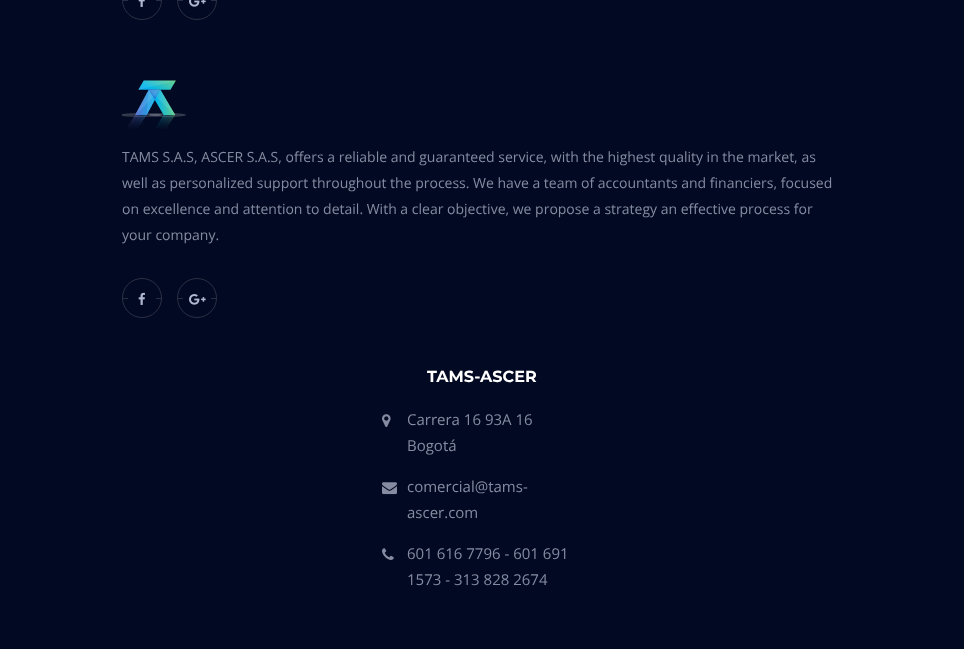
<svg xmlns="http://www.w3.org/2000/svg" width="964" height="649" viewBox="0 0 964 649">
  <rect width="100%" height="100%" fill="rgb(2,9,34)"/>
  <circle cx="142" cy="0" r="19.5" fill="none" stroke="rgb(45,48,68)"/>
  <rect x="123" y="0" width="5" height="1" fill="rgb(40,46,67)"/>
  <image x="138" y="0" width="7" height="7" href="pic1.png"/>
  <rect x="156" y="0" width="5" height="1" fill="rgb(40,46,67)"/>
  <circle cx="197" cy="0" r="19.5" fill="none" stroke="rgb(45,48,68)"/>
  <rect x="178" y="0" width="5" height="1" fill="rgb(40,46,67)"/>
  <image x="189" y="0" width="17" height="7" href="pic2.png"/>
  <rect x="211" y="0" width="5" height="1" fill="rgb(40,46,67)"/>
  <image x="122" y="80" width="64" height="49" href="pic3.png"/>
  <g font-family="Open Sans" font-size="14" fill="rgb(134,139,161)">
    <text>
      <tspan x="122" y="162">TAMS S.A.S, ASCER S.A.S, offers a reliable and guaranteed service, with the highest quality in the market, as</tspan>
      <tspan x="122" y="188">well as personalized support throughout the process. We have a team of accountants and financiers, focused</tspan>
      <tspan x="122" y="214">on excellence and attention to detail. With a clear objective, we propose a strategy an effective process for</tspan>
      <tspan x="122" y="240">your company.</tspan>
    </text>
  </g>
  <circle cx="142" cy="298" r="19.5" fill="none" stroke="rgb(45,48,68)"/>
  <rect x="123" y="298" width="5" height="1" fill="rgb(40,46,67)"/>
  <image x="138" y="292" width="7" height="13" href="pic4.png"/>
  <rect x="156" y="298" width="5" height="1" fill="rgb(40,46,67)"/>
  <circle cx="197" cy="298" r="19.5" fill="none" stroke="rgb(45,48,68)"/>
  <rect x="178" y="298" width="5" height="1" fill="rgb(40,46,67)"/>
  <image x="189" y="294" width="17" height="11" href="pic5.png"/>
  <rect x="211" y="298" width="5" height="1" fill="rgb(40,46,67)"/>
  <text x="427" y="382" font-family="Montserrat" font-size="16" font-weight="bold" fill="rgb(255,255,255)">TAMS-ASCER</text>
  <image x="382" y="414" width="9" height="13" href="pic6.png"/>
  <g font-family="Open Sans" font-size="15" fill="rgb(134,139,161)">
    <text>
      <tspan x="407" y="425">Carrera 16 93A 16</tspan>
      <tspan x="407" y="451">Bogotá</tspan>
    </text>
  </g>
  <image x="382" y="482" width="15" height="13" href="pic7.png"/>
  <g font-family="Open Sans" font-size="15" fill="rgb(134,139,161)">
    <text>
      <tspan x="407" y="492">comercial@tams-</tspan>
      <tspan x="407" y="518">ascer.com</tspan>
    </text>
  </g>
  <image x="382" y="548" width="12" height="12" href="pic8.png"/>
  <g font-family="Open Sans" font-size="15" fill="rgb(134,139,161)">
    <text>
      <tspan x="407" y="559">601 616 7796 - 601 691</tspan>
      <tspan x="407" y="585">1573 - 313 828 2674</tspan>
    </text>
  </g>
</svg>
